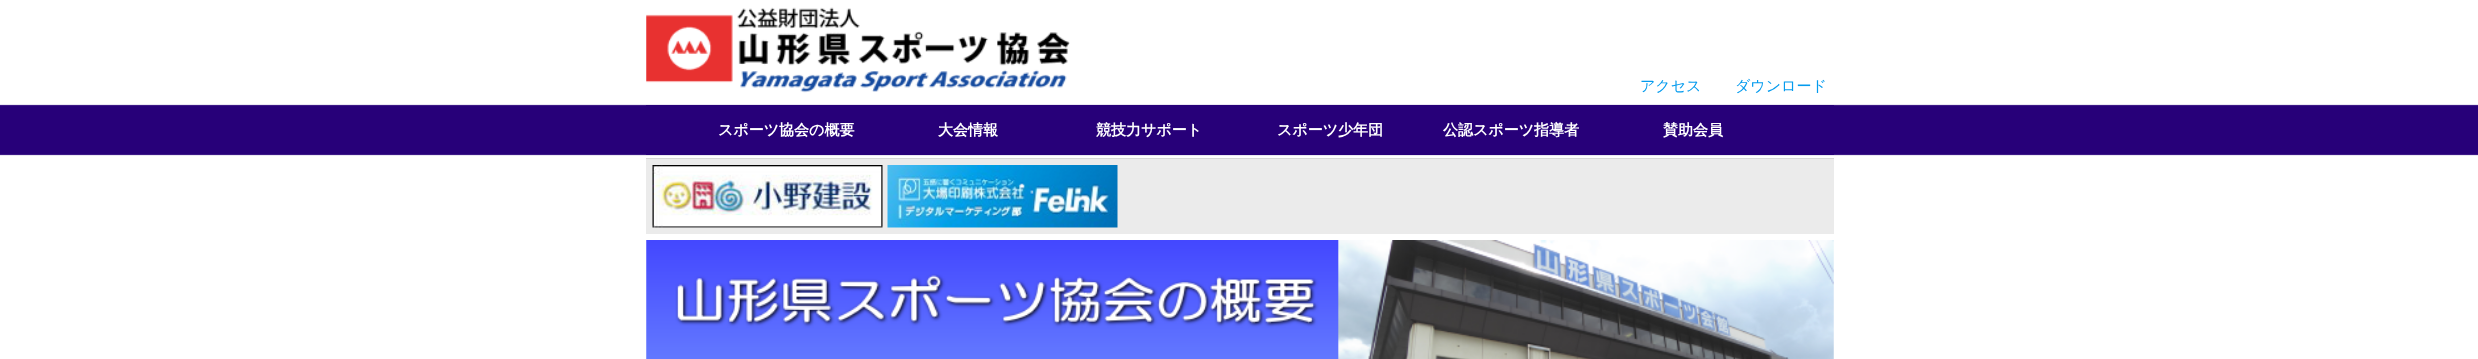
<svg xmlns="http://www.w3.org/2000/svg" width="2478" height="359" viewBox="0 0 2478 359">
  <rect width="100%" height="100%" fill="rgb(255,255,255)"/>
  <image x="0" y="104" width="2478" height="52" href="pic1.png"/>
  <image x="646" y="7" width="424" height="86" href="pic2.png"/>
  <g font-family="WenQuanYi Zen Hei" font-size="15" font-weight="500" fill="rgb(4,155,238)">
    <text x="1640" y="91">アクセス</text>
    <text x="1735" y="91">ダウンロード</text>
  </g>
  <rect x="646" y="105" width="1188" height="50" fill="rgb(39,0,121)"/>
  <g font-family="WenQuanYi Zen Hei" font-size="15" font-weight="bold" fill="rgb(255,255,255)">
    <text x="718" y="135">スポーツ協会の概要</text>
    <text x="938" y="135">大会情報</text>
    <text x="1096" y="135">競技力サポート</text>
    <text x="1277" y="135">スポーツ少年団</text>
    <text x="1443" y="135">公認スポーツ指導者</text>
    <text x="1663" y="135">賛助会員</text>
  </g>
  <rect x="646" y="158" width="1188" height="1" fill="rgb(214,214,214)"/>
  <rect x="646" y="159" width="1188" height="75" fill="rgb(235,235,235)"/>
  <image x="652" y="165" width="231" height="63" href="pic3.png"/>
  <image x="887" y="165" width="231" height="63" href="pic4.png"/>
  <image x="646" y="240" width="1188" height="119" href="pic5.png"/>
</svg>
